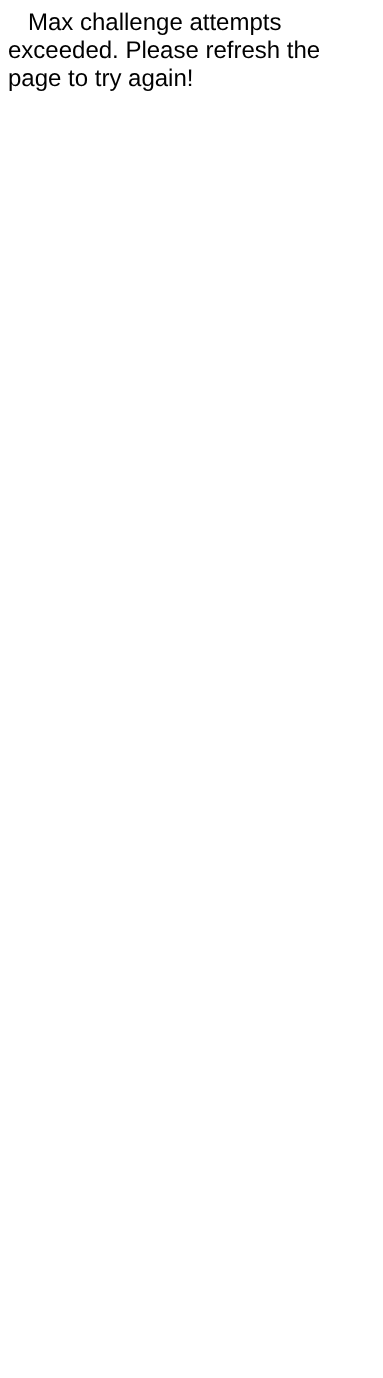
<svg xmlns="http://www.w3.org/2000/svg" width="383" height="1378" viewBox="0 0 383 1378">
  <rect width="100%" height="100%" fill="rgb(255,255,255)"/>
  <g font-family="Liberation Sans" font-size="24" fill="rgb(0,0,0)">
    <text x="28" y="30">Max challenge attempts</text>
    <text>
      <tspan x="8" y="58">exceeded. Please refresh the</tspan>
      <tspan x="8" y="86">page to try again!</tspan>
    </text>
  </g>
</svg>
